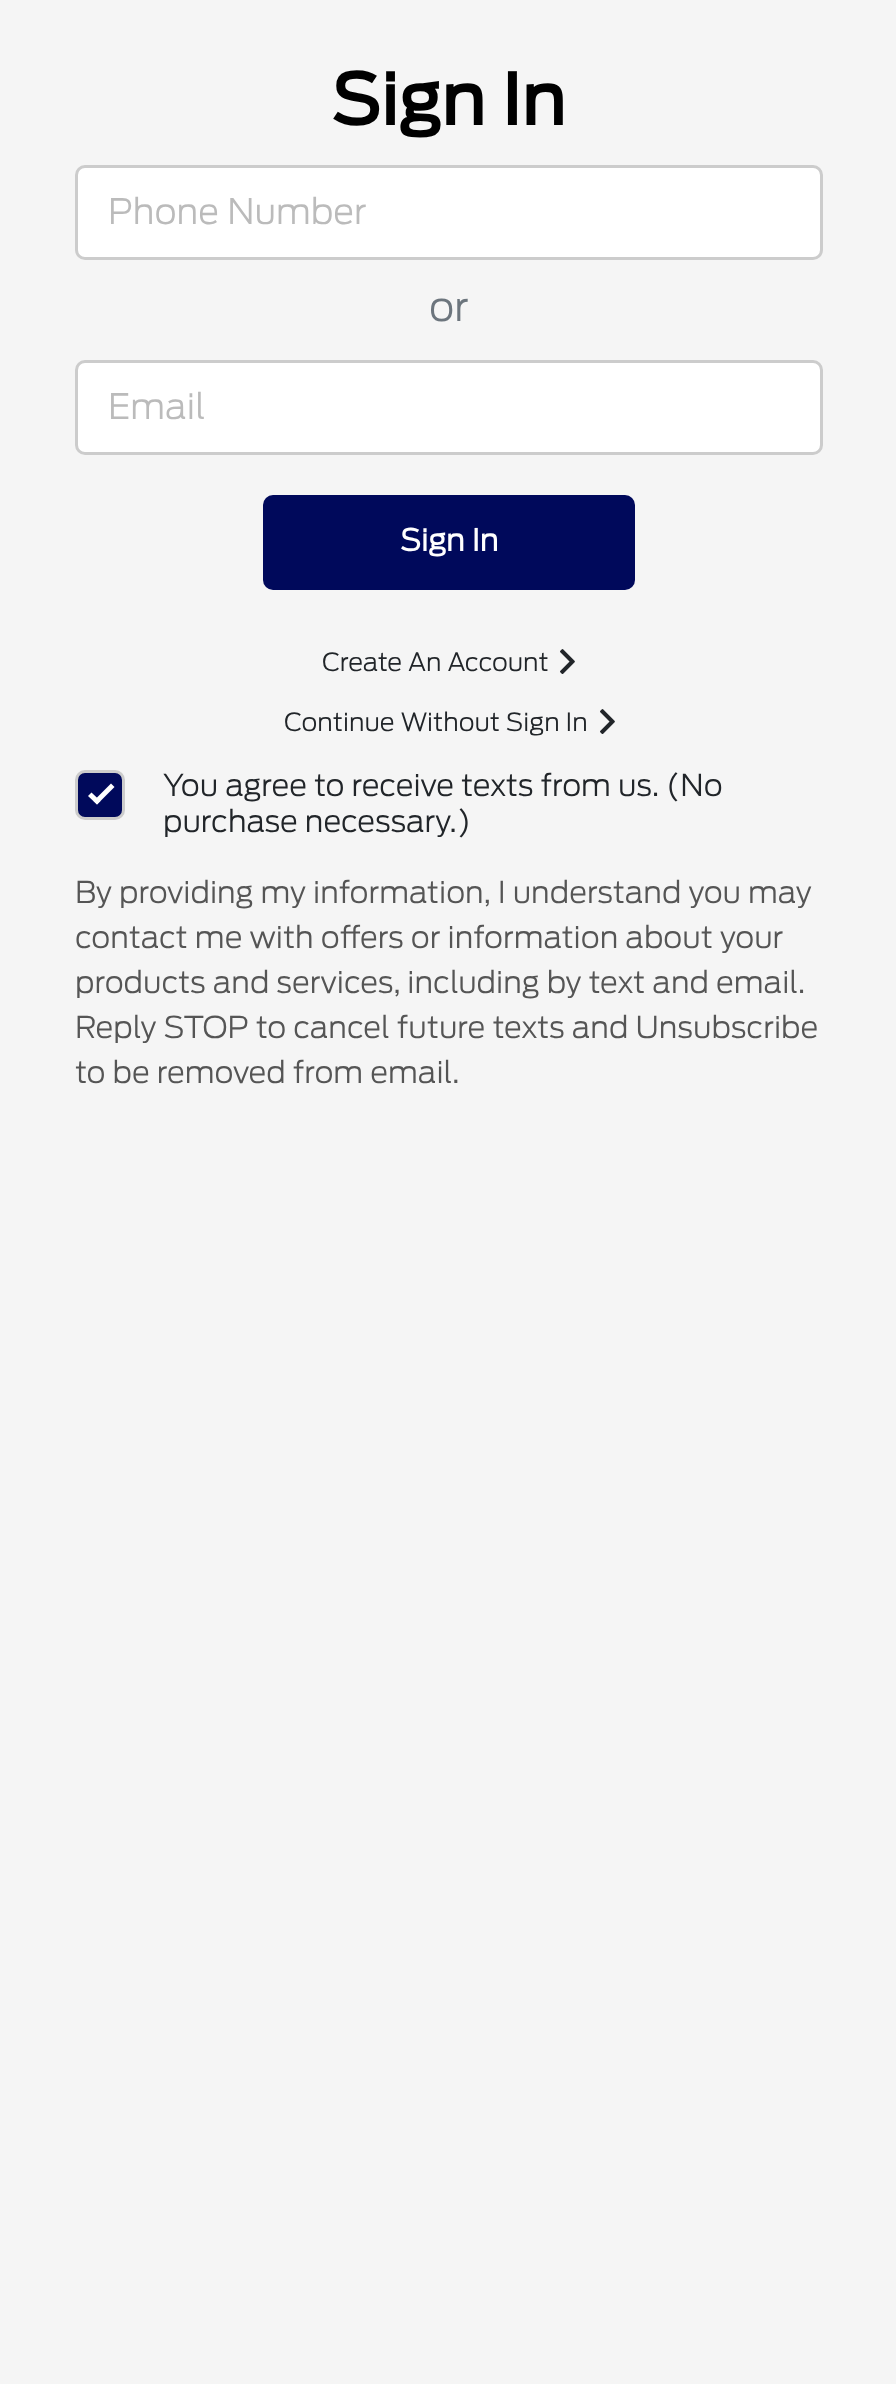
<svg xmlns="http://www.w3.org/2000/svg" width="896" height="2384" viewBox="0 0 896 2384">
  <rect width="100%" height="100%" fill="rgb(245,245,245)"/>
  <text x="331" y="125" font-family="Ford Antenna" font-size="70" font-weight="bold" fill="rgb(0,0,0)">Sign In</text>
  <rect x="76.5" y="166.5" width="745" height="92" rx="8.5" fill="rgb(255,255,255)" stroke="rgb(204,204,204)" stroke-width="3"/>
  <text x="108" y="224" font-family="Ford Antenna" font-size="35" font-weight="300" fill="rgb(187,187,187)">Phone Number</text>
  <text x="429" y="321" font-family="Ford Antenna" font-size="40" font-weight="300" fill="rgb(108,117,125)">or</text>
  <rect x="76.5" y="361.5" width="745" height="92" rx="8.5" fill="rgb(255,255,255)" stroke="rgb(204,204,204)" stroke-width="3"/>
  <text x="108" y="419" font-family="Ford Antenna" font-size="35" font-weight="300" fill="rgb(187,187,187)">Email</text>
  <rect x="263" y="495" width="372" height="95" rx="10" fill="rgb(0,9,91)"/>
  <text x="400" y="551" font-family="'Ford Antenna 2'" font-size="30" font-weight="bold" fill="rgb(255,255,255)">Sign In</text>
  <text x="322" y="671" font-family="Ford Antenna" font-size="25" font-weight="300" fill="rgb(33,37,41)">Create An Account</text>
  <image x="560" y="649" width="15" height="25" href="pic1.png"/>
  <text x="284" y="731" font-family="Ford Antenna" font-size="25" font-weight="300" fill="rgb(33,37,41)">Continue Without Sign In</text>
  <image x="600" y="709" width="15" height="25" href="pic1.png"/>
  <rect x="76.5" y="771.5" width="47" height="47" rx="8.5" fill="rgb(0,9,91)" stroke="rgb(204,204,204)" stroke-width="3"/>
  <path d="M111 783.5L114.5 787L97 804.5L93.5 801Z" fill="rgb(255,255,255)"/>
  <path d="M91.5 792.5L100.5 801L97 804.5L88 796Z" fill="rgb(255,255,255)"/>
  <g font-family="Ford Antenna" font-size="30" font-weight="300" fill="rgb(33,37,41)">
    <text>
      <tspan x="163" y="796">You agree to receive texts from us. (No</tspan>
      <tspan x="163" y="832">purchase necessary.)</tspan>
    </text>
  </g>
  <g font-family="Ford Antenna" font-size="30" font-weight="300" fill="rgb(85,85,85)">
    <text>
      <tspan x="75" y="903">By providing my information, I understand you may</tspan>
      <tspan x="75" y="948">contact me with offers or information about your</tspan>
      <tspan x="75" y="993">products and services, including by text and email.</tspan>
      <tspan x="75" y="1038">Reply STOP to cancel future texts and Unsubscribe</tspan>
      <tspan x="75" y="1083">to be removed from email.</tspan>
    </text>
  </g>
</svg>
